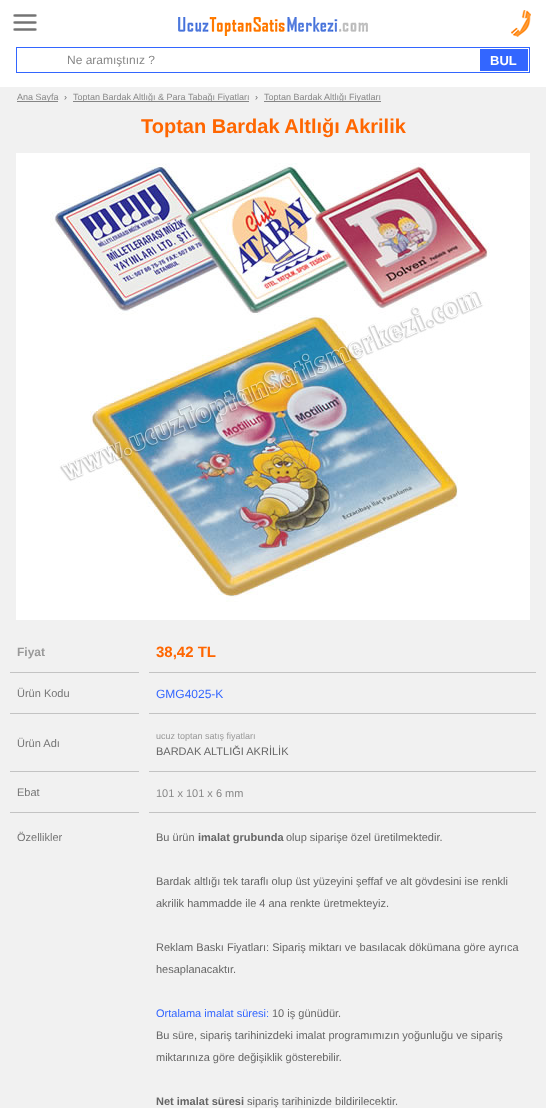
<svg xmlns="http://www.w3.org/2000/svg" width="546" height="1108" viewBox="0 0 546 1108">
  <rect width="100%" height="100%" fill="rgb(255,255,255)"/>
  <image x="13" y="14" width="24" height="17" href="pic1.png"/>
  <image x="178" y="17" width="190" height="19" href="pic2.png"/>
  <image x="511" y="10" width="20" height="27" href="pic3.png"/>
  <rect x="16.5" y="47.5" width="513" height="25" fill="none" stroke="rgb(51,102,255)"/>
  <text x="67" y="64" font-family="Liberation Sans" font-size="12" fill="rgb(136,136,136)">Ne aramıştınız ?</text>
  <rect x="480" y="49" width="48" height="22" fill="rgb(51,102,255)"/>
  <text x="490" y="65" font-family="Liberation Sans" font-size="13" font-weight="bold" fill="rgb(255,255,255)">BUL</text>
  <rect x="0" y="87" width="546" height="1021" fill="rgb(241,241,241)"/>
  <rect x="17" y="101" width="41" height="1" fill="rgb(133,133,133)"/>
  <text x="17" y="100" font-family="Liberation Sans" font-size="9" fill="rgb(136,136,136)">Ana Sayfa</text>
  <text x="64" y="100" font-family="Liberation Sans" font-size="9" fill="rgb(102,102,102)">›</text>
  <rect x="73" y="101" width="176" height="1" fill="rgb(133,133,133)"/>
  <text x="73" y="100" font-family="Liberation Sans" font-size="9" fill="rgb(136,136,136)">Toptan Bardak Altlığı &amp; Para Tabağı Fiyatları</text>
  <text x="255" y="100" font-family="Liberation Sans" font-size="9" fill="rgb(102,102,102)">›</text>
  <rect x="264" y="101" width="117" height="1" fill="rgb(133,133,133)"/>
  <text x="264" y="100" font-family="Liberation Sans" font-size="9" fill="rgb(136,136,136)">Toptan Bardak Altlığı Fiyatları</text>
  <text x="141" y="133" font-family="Liberation Sans" font-size="20" font-weight="bold" fill="rgb(255,102,0)">Toptan Bardak Altlığı Akrilik</text>
  <rect x="16" y="153" width="514" height="467" fill="rgb(255,255,255)"/>
  <image x="50" y="163" width="440" height="439" href="pic4.png"/>
  <rect x="10" y="672" width="129" height="1" fill="rgb(195,195,195)"/>
  <text x="17" y="656" font-family="Liberation Sans" font-size="12" font-weight="bold" fill="rgb(153,153,153)">Fiyat</text>
  <rect x="149" y="672" width="387" height="1" fill="rgb(195,195,195)"/>
  <text x="156" y="657" font-family="Liberation Sans" font-size="15" font-weight="bold" fill="rgb(255,102,0)">38,42 TL</text>
  <rect x="10" y="713" width="129" height="1" fill="rgb(195,195,195)"/>
  <text x="17" y="697" font-family="Liberation Sans" font-size="11" fill="rgb(117,117,117)">Ürün Kodu</text>
  <rect x="149" y="713" width="387" height="1" fill="rgb(195,195,195)"/>
  <text x="156" y="698" font-family="Liberation Sans" font-size="12" fill="rgb(51,102,255)">GMG4025-K</text>
  <rect x="10" y="771" width="129" height="1" fill="rgb(195,195,195)"/>
  <text x="17" y="747" font-family="Liberation Sans" font-size="11" fill="rgb(117,117,117)">Ürün Adı</text>
  <rect x="149" y="771" width="387" height="1" fill="rgb(195,195,195)"/>
  <text x="156" y="739" font-family="Liberation Sans" font-size="9" fill="rgb(153,153,153)">ucuz toptan satış fiyatları</text>
  <text x="156" y="755" font-family="Liberation Sans" font-size="11" fill="rgb(102,102,102)">BARDAK ALTLIĞI AKRİLİK</text>
  <rect x="10" y="812" width="129" height="1" fill="rgb(195,195,195)"/>
  <text x="17" y="796" font-family="Liberation Sans" font-size="11" fill="rgb(117,117,117)">Ebat</text>
  <rect x="149" y="812" width="387" height="1" fill="rgb(195,195,195)"/>
  <text x="156" y="797" font-family="Liberation Sans" font-size="11" fill="rgb(136,136,136)">101 x 101 x 6 mm</text>
  <text x="17" y="841" font-family="Liberation Sans" font-size="11" fill="rgb(117,117,117)">Özellikler</text>
  <text x="156" y="841" font-family="Liberation Sans" font-size="11" fill="rgb(102,102,102)">Bu ürün</text>
  <text x="198" y="841" font-family="Liberation Sans" font-size="11" font-weight="bold" fill="rgb(102,102,102)">imalat grubunda</text>
  <g font-family="Liberation Sans" font-size="11" fill="rgb(102,102,102)">
    <text x="286" y="841">olup siparişe özel üretilmektedir.</text>
    <text x="156" y="885">Bardak altlığı tek taraflı olup üst yüzeyini şeffaf ve alt gövdesini ise renkli</text>
    <text x="156" y="907">akrilik hammadde ile 4 ana renkte üretmekteyiz.</text>
    <text x="156" y="951">Reklam Baskı Fiyatları: Sipariş miktarı ve basılacak dökümana göre ayrıca</text>
    <text x="156" y="973">hesaplanacaktır.</text>
  </g>
  <text x="156" y="1017" font-family="Liberation Sans" font-size="11" fill="rgb(51,102,255)">Ortalama imalat süresi:</text>
  <g font-family="Liberation Sans" font-size="11" fill="rgb(102,102,102)">
    <text x="272" y="1017">10 iş günüdür.</text>
    <text x="156" y="1039">Bu süre, sipariş tarihinizdeki imalat programımızın yoğunluğu ve sipariş</text>
    <text x="156" y="1061">miktarınıza göre değişiklik gösterebilir.</text>
  </g>
  <text x="156" y="1105" font-family="Liberation Sans" font-size="11" font-weight="bold" fill="rgb(102,102,102)">Net imalat süresi</text>
  <text x="247" y="1105" font-family="Liberation Sans" font-size="11" fill="rgb(102,102,102)">sipariş tarihinizde bildirilecektir.</text>
</svg>
